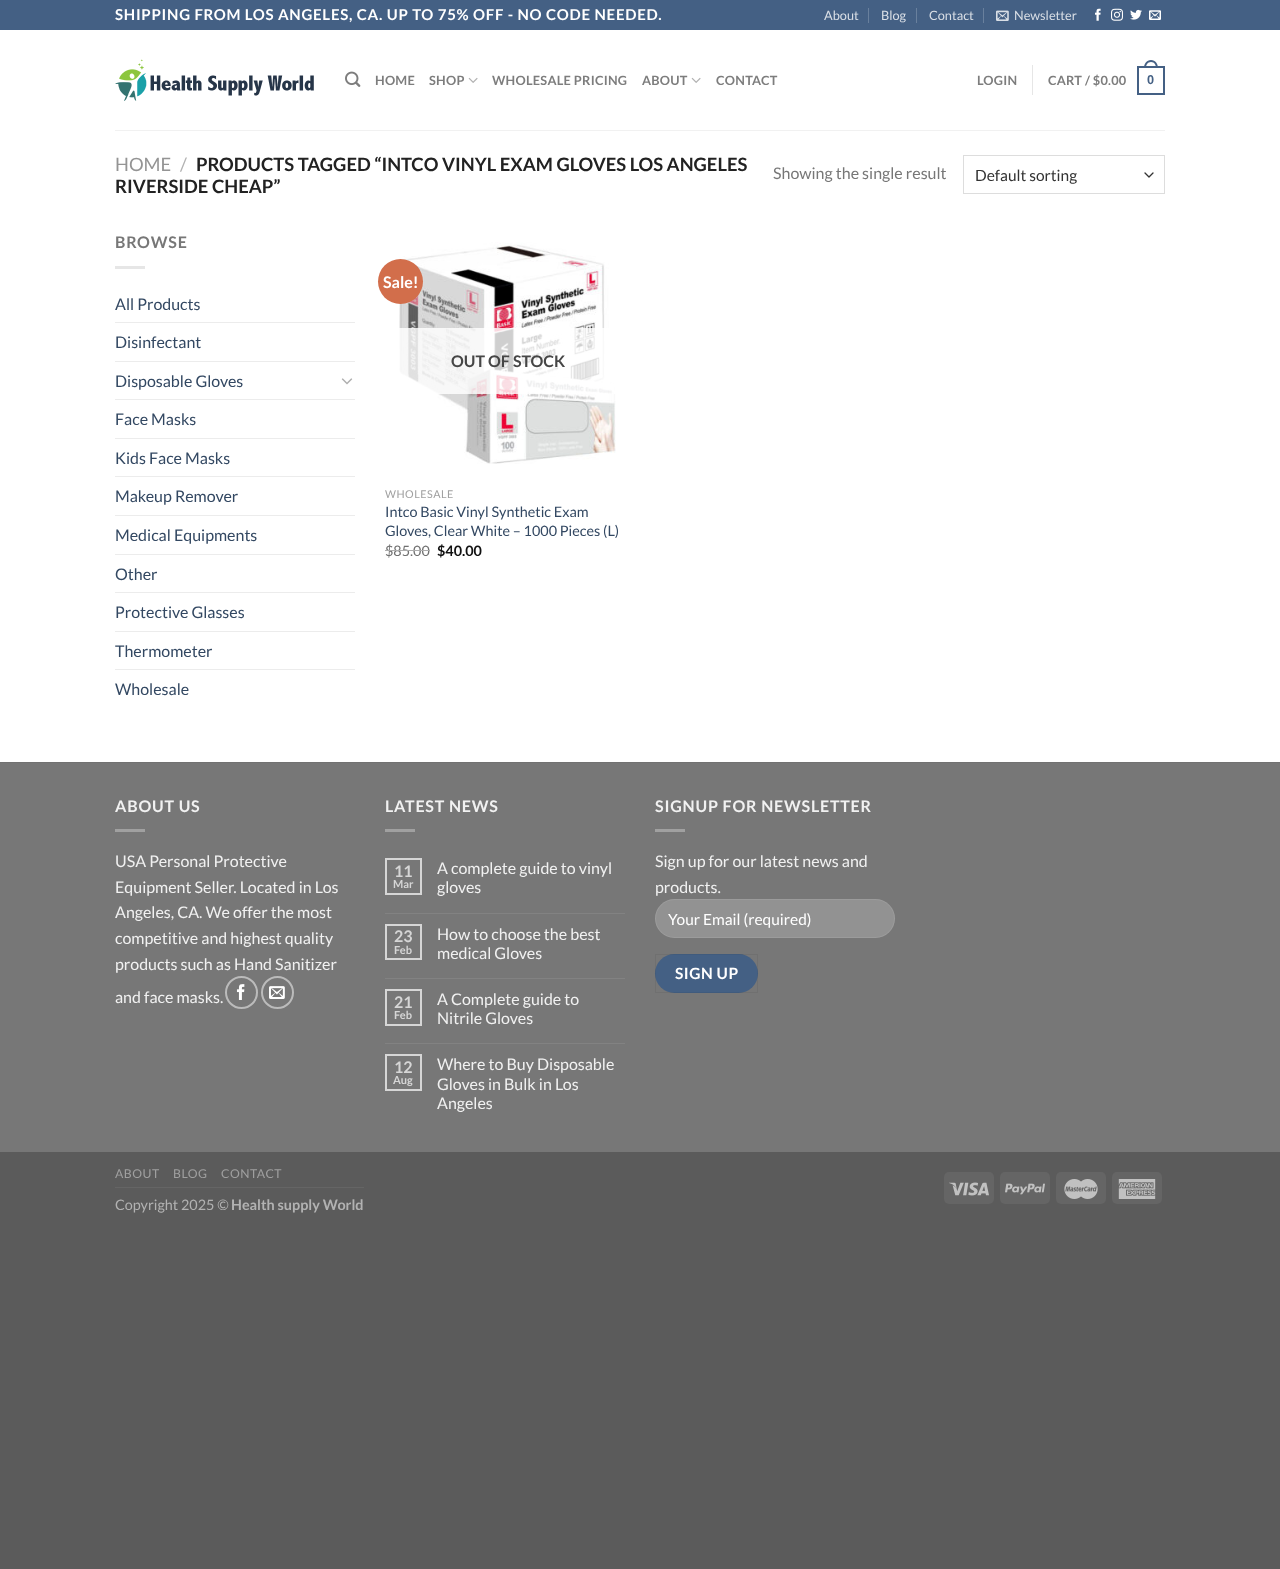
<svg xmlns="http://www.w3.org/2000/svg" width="1280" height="1569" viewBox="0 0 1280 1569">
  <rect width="100%" height="100%" fill="rgb(91,91,91)"/>
  <rect x="0" y="30" width="1280" height="732" fill="rgb(255,255,255)"/>
  <rect x="0" y="0" width="1280" height="30" fill="rgb(68,96,132)"/>
  <text x="115" y="20" font-family="Lato" font-size="15" font-weight="bold" letter-spacing="0.75" fill="rgb(255,255,255)">SHIPPING FROM LOS ANGELES, CA. UP TO 75% OFF - NO CODE NEEDED.</text>
  <text x="824" y="20" font-family="Lato" font-size="12.75" fill="rgb(218,223,230)">About</text>
  <rect x="868" y="8" width="1" height="15" fill="rgb(105,128,157)"/>
  <text x="881" y="20" font-family="Lato" font-size="12.75" fill="rgb(218,223,230)">Blog</text>
  <rect x="916" y="8" width="1" height="15" fill="rgb(105,128,157)"/>
  <text x="929" y="20" font-family="Lato" font-size="12.75" fill="rgb(218,223,230)">Contact</text>
  <rect x="983" y="8" width="1" height="15" fill="rgb(105,128,157)"/>
  <image x="996" y="10" width="13" height="11" href="pic1.png"/>
  <text x="1014" y="20" font-family="Lato" font-size="12.75" fill="rgb(218,223,230)">Newsletter</text>
  <image x="1095" y="8" width="6" height="13" href="pic2.png"/>
  <image x="1111" y="8" width="12" height="13" href="pic3.png"/>
  <image x="1130" y="9" width="12" height="11" href="pic4.png"/>
  <image x="1149" y="10" width="12" height="10" href="pic5.png"/>
  <image x="115" y="59" width="199" height="42" href="pic6.png"/>
  <image x="345" y="71" width="16" height="16" href="pic7.png"/>
  <g font-family="Lato" font-size="12.75" font-weight="bold" letter-spacing="0.25" fill="rgb(125,125,125)">
    <text x="375" y="85">HOME</text>
    <text x="429" y="85">SHOP</text>
  </g>
  <image x="468" y="77" width="10" height="6" href="pic8.png"/>
  <g font-family="Lato" font-size="12.75" font-weight="bold" letter-spacing="0.25" fill="rgb(125,125,125)">
    <text x="492" y="85">WHOLESALE PRICING</text>
    <text x="642" y="85">ABOUT</text>
  </g>
  <image x="691" y="77" width="10" height="6" href="pic8.png"/>
  <g font-family="Lato" font-size="12.75" font-weight="bold" letter-spacing="0.25" fill="rgb(125,125,125)">
    <text x="716" y="85">CONTACT</text>
    <text x="977" y="85">LOGIN</text>
  </g>
  <rect x="1032" y="65" width="1" height="30" fill="rgb(230,230,230)"/>
  <text x="1048" y="85" font-family="Lato" font-size="12.75" font-weight="bold" letter-spacing="0.25" fill="rgb(125,125,125)">CART / $0.00</text>
  <rect x="1138" y="67" width="26" height="27" fill="none" stroke="rgb(68,96,132)" stroke-width="2"/>
  <path d="M1151 60C1155.5 60 1158 64 1158 68H1144C1144 64 1146.5 60 1151 60ZM1151 62C1154.5 62 1156 65 1156 68H1146C1146 65 1147.5 62 1151 62Z" fill="rgb(68,96,132)" fill-rule="evenodd"/>
  <text x="1147" y="84" font-family="Liberation Sans" font-size="12.75" font-weight="bold" letter-spacing="0.25" fill="rgb(68,96,132)">0</text>
  <rect x="115" y="130" width="1050" height="1" fill="rgb(241,241,241)"/>
  <text x="115" y="171" font-family="Lato" font-size="18.4" fill="rgb(148,148,148)">HOME</text>
  <text x="180" y="171" font-family="Lato" font-size="18.4" fill="rgb(178,178,178)">/</text>
  <g font-family="Lato" font-size="18.4" font-weight="bold" fill="rgb(34,34,34)">
    <text x="196" y="171">PRODUCTS TAGGED “INTCO VINYL EXAM GLOVES LOS ANGELES</text>
    <text x="115" y="193">RIVERSIDE CHEAP”</text>
  </g>
  <text x="773" y="179" font-family="Lato" font-size="16" fill="rgb(119,119,119)">Showing the single result</text>
  <path d="M1145 173L1149 177L1153 173" fill="none" stroke="rgb(51,51,51)" stroke-width="1.3" stroke-linecap="round" stroke-linejoin="round"/>
  <rect x="963.5" y="155.5" width="201" height="38" fill="none" stroke="rgb(221,221,221)"/>
  <text x="975" y="181" font-family="Lato" font-size="15.5" fill="rgb(51,51,51)">Default sorting</text>
  <text x="115" y="248" font-family="Lato" font-size="16" font-weight="bold" letter-spacing="0.8" fill="rgb(119,119,119)">BROWSE</text>
  <rect x="115" y="266" width="30" height="3" fill="rgb(230,230,230)"/>
  <text x="115" y="310" font-family="Lato" font-size="16" fill="rgb(51,72,98)">All Products</text>
  <rect x="115" y="322" width="240" height="1" fill="rgb(236,236,236)"/>
  <text x="115" y="348" font-family="Lato" font-size="16" fill="rgb(51,72,98)">Disinfectant</text>
  <rect x="115" y="361" width="240" height="1" fill="rgb(236,236,236)"/>
  <text x="115" y="387" font-family="Lato" font-size="16" fill="rgb(51,72,98)">Disposable Gloves</text>
  <image x="341" y="378" width="12" height="7" href="pic9.png"/>
  <rect x="115" y="399" width="240" height="1" fill="rgb(236,236,236)"/>
  <text x="115" y="425" font-family="Lato" font-size="16" fill="rgb(51,72,98)">Face Masks</text>
  <rect x="115" y="438" width="240" height="1" fill="rgb(236,236,236)"/>
  <text x="115" y="464" font-family="Lato" font-size="16" fill="rgb(51,72,98)">Kids Face Masks</text>
  <rect x="115" y="476" width="240" height="1" fill="rgb(236,236,236)"/>
  <text x="115" y="502" font-family="Lato" font-size="16" fill="rgb(51,72,98)">Makeup Remover</text>
  <rect x="115" y="515" width="240" height="1" fill="rgb(236,236,236)"/>
  <text x="115" y="541" font-family="Lato" font-size="16" fill="rgb(51,72,98)">Medical Equipments</text>
  <rect x="115" y="554" width="240" height="1" fill="rgb(236,236,236)"/>
  <text x="115" y="580" font-family="Lato" font-size="16" fill="rgb(51,72,98)">Other</text>
  <rect x="115" y="592" width="240" height="1" fill="rgb(236,236,236)"/>
  <text x="115" y="618" font-family="Lato" font-size="16" fill="rgb(51,72,98)">Protective Glasses</text>
  <rect x="115" y="631" width="240" height="1" fill="rgb(236,236,236)"/>
  <text x="115" y="657" font-family="Lato" font-size="16" fill="rgb(51,72,98)">Thermometer</text>
  <rect x="115" y="669" width="240" height="1" fill="rgb(236,236,236)"/>
  <text x="115" y="695" font-family="Lato" font-size="16" fill="rgb(51,72,98)">Wholesale</text>
  <image x="399" y="242" width="217" height="222" href="pic10.png"/>
  <circle cx="400.5" cy="281.5" r="22.5" fill="rgb(210,110,75)"/>
  <text x="383" y="288" font-family="Lato" font-size="16" font-weight="bold" fill="rgb(255,255,255)">Sale!</text>
  <rect x="399" y="328" width="217" height="66" fill="rgba(255,255,255,0.81)"/>
  <text x="451" y="367" font-family="Lato" font-size="16" font-weight="bold" fill="rgb(70,70,70)">OUT OF STOCK</text>
  <text x="385" y="498" font-family="Lato" font-size="10.75" letter-spacing="0.5" fill="rgb(160,160,160)">WHOLESALE</text>
  <g font-family="Lato" font-size="14.4" fill="rgb(51,72,98)">
    <text>
      <tspan x="385" y="517">Intco Basic Vinyl Synthetic Exam</tspan>
      <tspan x="385" y="536">Gloves, Clear White – 1000 Pieces (L)</tspan>
    </text>
  </g>
  <text x="385" y="556" font-family="Lato" font-size="14.4" fill="rgb(112,112,112)">$85.00</text>
  <rect x="385" y="550" width="45" height="1" fill="rgb(173,173,173)"/>
  <text x="437" y="556" font-family="Lato" font-size="14.4" font-weight="bold" fill="rgb(17,17,17)">$40.00</text>
  <rect x="0" y="763" width="1280" height="389" fill="rgb(119,119,119)"/>
  <rect x="0" y="762" width="1280" height="1" fill="rgb(113,113,113)"/>
  <text x="115" y="812" font-family="Lato" font-size="16" font-weight="bold" letter-spacing="0.8" fill="rgb(241,241,241)">ABOUT US</text>
  <rect x="115" y="829" width="30" height="3" fill="rgb(160,160,160)"/>
  <g font-family="Lato" font-size="16" fill="rgb(241,241,241)">
    <text>
      <tspan x="115" y="867">USA Personal Protective</tspan>
      <tspan x="115" y="893">Equipment Seller. Located in Los</tspan>
      <tspan x="115" y="918">Angeles, CA. We offer the most</tspan>
      <tspan x="115" y="944">competitive and highest quality</tspan>
      <tspan x="115" y="970">products such as Hand Sanitizer</tspan>
    </text>
    <text x="115" y="1003">and face masks.</text>
  </g>
  <circle cx="241.5" cy="992.5" r="15.5" fill="none" stroke="rgb(187,187,187)" stroke-width="2"/>
  <image x="236" y="984" width="9" height="16" href="pic11.png"/>
  <circle cx="277.5" cy="992.5" r="15.5" fill="none" stroke="rgb(187,187,187)" stroke-width="2"/>
  <image x="269" y="986" width="16" height="13" href="pic12.png"/>
  <text x="385" y="812" font-family="Lato" font-size="16" font-weight="bold" letter-spacing="0.8" fill="rgb(241,241,241)">LATEST NEWS</text>
  <rect x="385" y="829" width="30" height="3" fill="rgb(160,160,160)"/>
  <rect x="386" y="859" width="35" height="35" fill="none" stroke="rgb(214,214,214)" stroke-width="2"/>
  <text x="394" y="877" font-family="Lato" font-size="16" font-weight="bold" fill="rgb(214,214,214)">11</text>
  <text x="393" y="888" font-family="Lato" font-size="11" font-weight="bold" fill="rgb(214,214,214)">Mar</text>
  <g font-family="Lato" font-size="16" fill="rgb(241,241,241)">
    <text>
      <tspan x="437" y="874">A complete guide to vinyl</tspan>
      <tspan x="437" y="893">gloves</tspan>
    </text>
  </g>
  <rect x="385" y="913" width="240" height="1" fill="rgb(130,130,130)"/>
  <rect x="386" y="925" width="35" height="34" fill="none" stroke="rgb(214,214,214)" stroke-width="2"/>
  <text x="394" y="942" font-family="Lato" font-size="16" font-weight="bold" fill="rgb(214,214,214)">23</text>
  <text x="394" y="954" font-family="Lato" font-size="11" font-weight="bold" fill="rgb(214,214,214)">Feb</text>
  <g font-family="Lato" font-size="16" fill="rgb(241,241,241)">
    <text>
      <tspan x="437" y="940">How to choose the best</tspan>
      <tspan x="437" y="959">medical Gloves</tspan>
    </text>
  </g>
  <rect x="385" y="978" width="240" height="1" fill="rgb(130,130,130)"/>
  <rect x="386" y="990" width="35" height="35" fill="none" stroke="rgb(214,214,214)" stroke-width="2"/>
  <text x="394" y="1008" font-family="Lato" font-size="16" font-weight="bold" fill="rgb(214,214,214)">21</text>
  <text x="394" y="1019" font-family="Lato" font-size="11" font-weight="bold" fill="rgb(214,214,214)">Feb</text>
  <g font-family="Lato" font-size="16" fill="rgb(241,241,241)">
    <text>
      <tspan x="437" y="1005">A Complete guide to</tspan>
      <tspan x="437" y="1024">Nitrile Gloves</tspan>
    </text>
  </g>
  <rect x="385" y="1043" width="240" height="1" fill="rgb(130,130,130)"/>
  <rect x="386" y="1055" width="35" height="35" fill="none" stroke="rgb(214,214,214)" stroke-width="2"/>
  <text x="394" y="1073" font-family="Lato" font-size="16" font-weight="bold" fill="rgb(214,214,214)">12</text>
  <text x="393" y="1084" font-family="Lato" font-size="11" font-weight="bold" fill="rgb(214,214,214)">Aug</text>
  <g font-family="Lato" font-size="16" fill="rgb(241,241,241)">
    <text>
      <tspan x="437" y="1070">Where to Buy Disposable</tspan>
      <tspan x="437" y="1090">Gloves in Bulk in Los</tspan>
      <tspan x="437" y="1109">Angeles</tspan>
    </text>
  </g>
  <text x="655" y="812" font-family="Lato" font-size="16" font-weight="bold" letter-spacing="0.8" fill="rgb(241,241,241)">SIGNUP FOR NEWSLETTER</text>
  <rect x="655" y="829" width="30" height="3" fill="rgb(160,160,160)"/>
  <g font-family="Lato" font-size="16" fill="rgb(241,241,241)">
    <text>
      <tspan x="655" y="867">Sign up for our latest news and</tspan>
      <tspan x="655" y="893">products.</tspan>
    </text>
  </g>
  <rect x="655" y="899" width="240" height="39" rx="19.5" fill="rgb(146,146,146)"/>
  <rect x="655.5" y="899.5" width="239" height="38" rx="19" fill="none" stroke="rgba(255,255,255,0.09)"/>
  <text x="668" y="925" font-family="Lato" font-size="15.5" fill="rgb(255,255,255)">Your Email (required)</text>
  <rect x="655" y="954" width="103" height="39" rx="19.5" fill="rgb(68,96,132)"/>
  <rect x="655.5" y="954.5" width="102" height="38" fill="none" stroke="rgba(0,0,0,0.05)"/>
  <text x="675" y="979" font-family="Lato" font-size="15.5" font-weight="bold" letter-spacing="0.5" fill="rgb(255,255,255)">SIGN UP</text>
  <rect x="115" y="1187" width="249" height="1" fill="rgb(101,101,101)"/>
  <g font-family="Lato" font-size="12.25" letter-spacing="0.5" fill="rgb(160,160,160)">
    <text x="115" y="1178">ABOUT</text>
    <text x="173" y="1178">BLOG</text>
    <text x="221" y="1178">CONTACT</text>
  </g>
  <text x="115" y="1210" font-family="Lato" font-size="14.4" fill="rgb(178,178,178)">Copyright 2025 ©</text>
  <text x="231" y="1210" font-family="Lato" font-size="14.4" font-weight="bold" fill="rgb(178,178,178)">Health supply World</text>
  <rect x="944" y="1172" width="50" height="32" rx="5" fill="rgb(101,101,101)"/>
  <image x="949" y="1182" width="40" height="14" href="pic13.png"/>
  <rect x="1000" y="1172" width="50" height="32" rx="5" fill="rgb(101,101,101)"/>
  <image x="1005" y="1183" width="40" height="12" href="pic14.png"/>
  <rect x="1056" y="1172" width="50" height="32" rx="5" fill="rgb(101,101,101)"/>
  <image x="1064" y="1179" width="34" height="20" href="pic15.png"/>
  <rect x="1112" y="1172" width="50" height="32" rx="5" fill="rgb(101,101,101)"/>
  <image x="1118" y="1179" width="38" height="20" href="pic16.png"/>
</svg>
